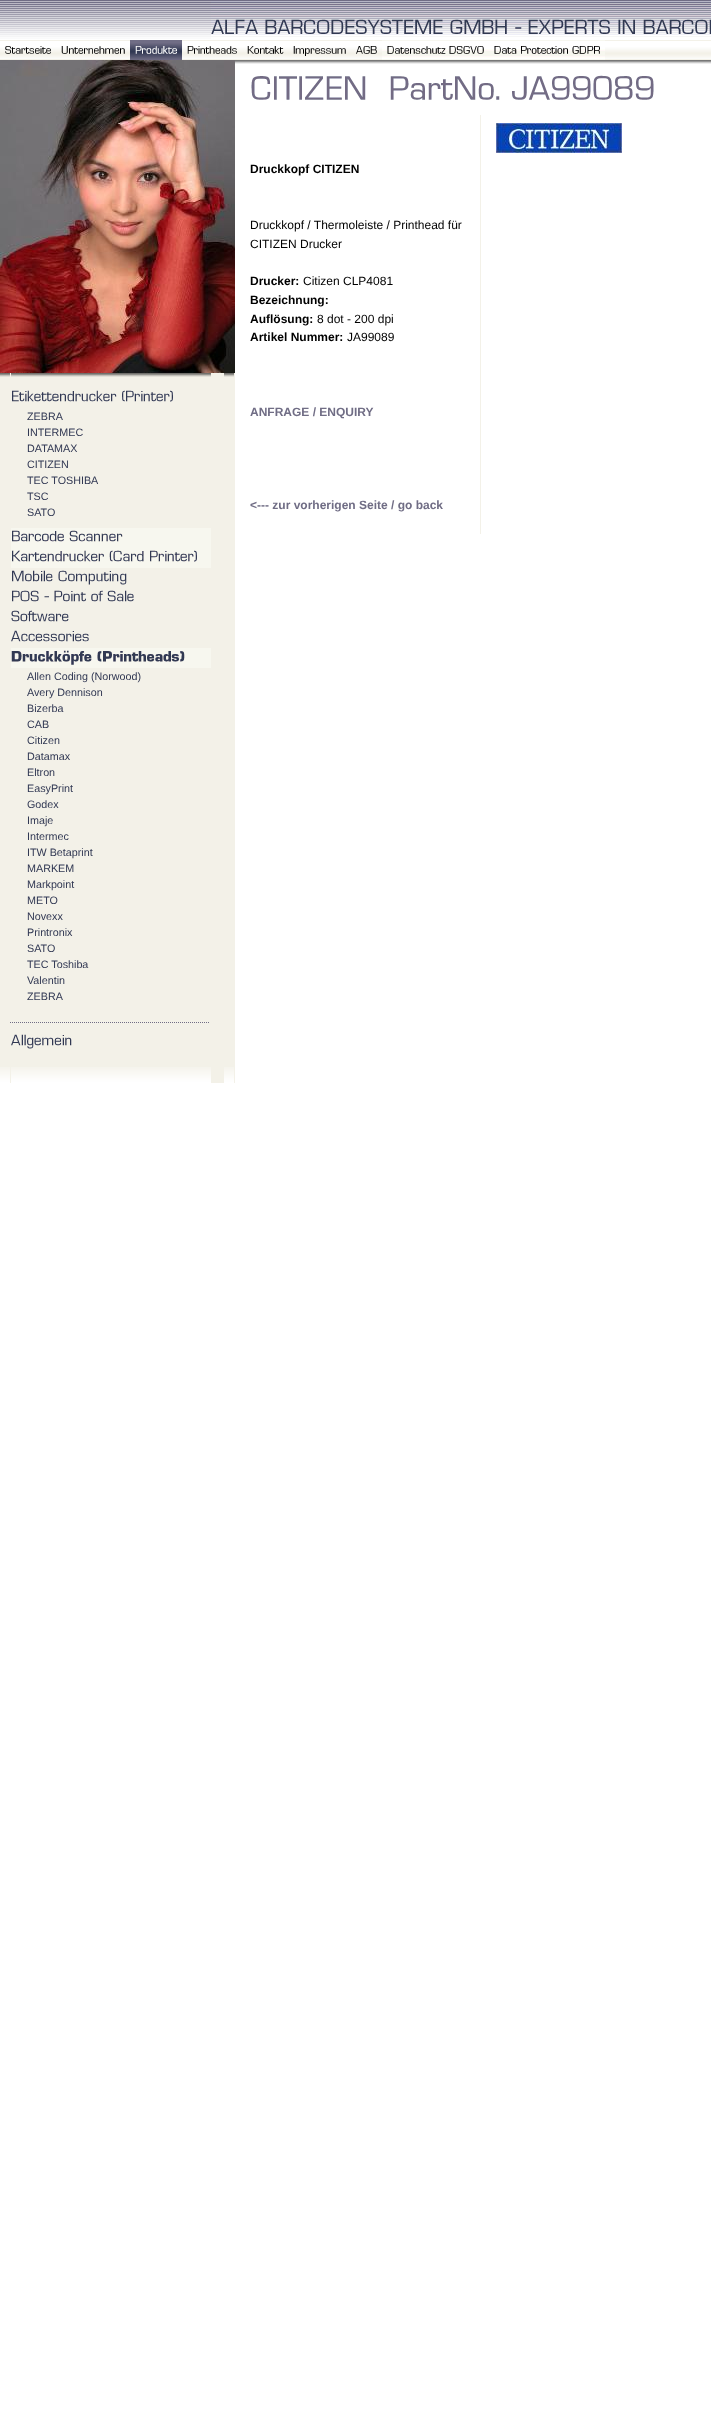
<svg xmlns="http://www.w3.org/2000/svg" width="711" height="2429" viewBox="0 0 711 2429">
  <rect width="100%" height="100%" fill="rgb(255,255,255)"/>
  <image x="0" y="0" width="711" height="39" href="pic1.png"/>
  <image x="211" y="1" width="500" height="38" href="pic2.png"/>
  <image x="0" y="40" width="711" height="20" href="pic3.png"/>
  <image x="5" y="46" width="46" height="8" href="pic4.png"/>
  <image x="61" y="46" width="64" height="8" href="pic5.png"/>
  <image x="130" y="40" width="52" height="20" href="pic6.png"/>
  <image x="187" y="46" width="50" height="8" href="pic7.png"/>
  <image x="247" y="46" width="37" height="8" href="pic8.png"/>
  <image x="293" y="46" width="53" height="10" href="pic9.png"/>
  <image x="356" y="46" width="21" height="8" href="pic10.png"/>
  <image x="382" y="40" width="107" height="20" href="pic11.png"/>
  <image x="489" y="40" width="116" height="20" href="pic12.png"/>
  <image x="235" y="60" width="15" height="4" href="pic13.png"/>
  <image x="696" y="60" width="15" height="4" href="pic13.png"/>
  <image x="250" y="60" width="216" height="4" href="pic14.png"/>
  <image x="466" y="60" width="30" height="4" href="pic15.png"/>
  <image x="496" y="60" width="200" height="4" href="pic16.png"/>
  <image x="251" y="75" width="403" height="25" href="pic17.png"/>
  <image x="496" y="123" width="126" height="30" href="pic18.png"/>
  <text x="250" y="173" font-family="Liberation Sans" font-size="12" font-weight="bold" fill="rgb(0,0,0)">Druckkopf CITIZEN</text>
  <g font-family="Liberation Sans" font-size="12" fill="rgb(0,0,0)">
    <text>
      <tspan x="250" y="229">Druckkopf / Thermoleiste / Printhead für</tspan>
      <tspan x="250" y="248">CITIZEN Drucker</tspan>
    </text>
  </g>
  <text x="250" y="285" font-family="Liberation Sans" font-size="12" font-weight="bold" fill="rgb(0,0,0)">Drucker:</text>
  <text x="303" y="285" font-family="Liberation Sans" font-size="12" fill="rgb(0,0,0)">Citizen CLP4081</text>
  <g font-family="Liberation Sans" font-size="12" font-weight="bold" fill="rgb(0,0,0)">
    <text>
      <tspan x="250" y="304">Bezeichnung:</tspan>
      <tspan x="250" y="323">Auflösung:</tspan>
    </text>
  </g>
  <text x="317" y="323" font-family="Liberation Sans" font-size="12" fill="rgb(0,0,0)">8 dot - 200 dpi</text>
  <text x="250" y="341" font-family="Liberation Sans" font-size="12" font-weight="bold" fill="rgb(0,0,0)">Artikel Nummer:</text>
  <text x="347" y="341" font-family="Liberation Sans" font-size="12" fill="rgb(0,0,0)">JA99089</text>
  <g font-family="Liberation Sans" font-size="12" font-weight="bold" fill="rgb(112,109,133)">
    <text x="250" y="416">ANFRAGE / ENQUIRY</text>
    <text x="250" y="509">&lt;--- zur vorherigen Seite / go back</text>
  </g>
  <rect x="480" y="115" width="1" height="419" fill="rgb(243,241,232)"/>
  <rect x="0" y="373" width="235" height="710" fill="rgb(243,241,232)"/>
  <image x="0" y="60" width="235" height="313" href="pic19.png"/>
  <image x="0" y="373" width="10" height="4" href="pic20.png"/>
  <image x="11" y="373" width="200" height="4" href="pic21.png"/>
  <image x="224" y="373" width="10" height="4" href="pic20.png"/>
  <image x="12" y="390" width="161" height="12" href="pic22.png"/>
  <g font-family="Liberation Sans" font-size="10.75" fill="rgb(49,56,83)">
    <text>
      <tspan x="27" y="420">ZEBRA</tspan>
      <tspan x="27" y="436">INTERMEC</tspan>
      <tspan x="27" y="452">DATAMAX</tspan>
      <tspan x="27" y="468">CITIZEN</tspan>
      <tspan x="27" y="484">TEC TOSHIBA</tspan>
      <tspan x="27" y="500">TSC</tspan>
      <tspan x="27" y="516">SATO</tspan>
    </text>
  </g>
  <image x="11" y="528" width="200" height="20" href="pic23.png"/>
  <image x="11" y="548" width="200" height="20" href="pic24.png"/>
  <image x="12" y="570" width="115" height="15" href="pic25.png"/>
  <image x="12" y="590" width="122" height="12" href="pic26.png"/>
  <image x="11" y="610" width="58" height="12" href="pic27.png"/>
  <image x="11" y="630" width="78" height="12" href="pic28.png"/>
  <image x="11" y="648" width="200" height="20" href="pic29.png"/>
  <g font-family="Liberation Sans" font-size="10.75" fill="rgb(49,56,83)">
    <text>
      <tspan x="27" y="680">Allen Coding (Norwood)</tspan>
      <tspan x="27" y="696">Avery Dennison</tspan>
      <tspan x="27" y="712">Bizerba</tspan>
      <tspan x="27" y="728">CAB</tspan>
      <tspan x="27" y="744">Citizen</tspan>
      <tspan x="27" y="760">Datamax</tspan>
      <tspan x="27" y="776">Eltron</tspan>
      <tspan x="27" y="792">EasyPrint</tspan>
      <tspan x="27" y="808">Godex</tspan>
      <tspan x="27" y="824">Imaje</tspan>
      <tspan x="27" y="840">Intermec</tspan>
      <tspan x="27" y="856">ITW Betaprint</tspan>
      <tspan x="27" y="872">MARKEM</tspan>
      <tspan x="27" y="888">Markpoint</tspan>
      <tspan x="27" y="904">METO</tspan>
      <tspan x="27" y="920">Novexx</tspan>
      <tspan x="27" y="936">Printronix</tspan>
      <tspan x="27" y="952">SATO</tspan>
      <tspan x="27" y="968">TEC Toshiba</tspan>
      <tspan x="27" y="984">Valentin</tspan>
      <tspan x="27" y="1000">ZEBRA</tspan>
    </text>
  </g>
  <image x="10" y="1022" width="199" height="1" href="pic30.png"/>
  <image x="11" y="1034" width="61" height="15" href="pic31.png"/>
  <image x="0" y="1067" width="10" height="16" href="pic32.png"/>
  <image x="11" y="1067" width="200" height="16" href="pic33.png"/>
  <image x="224" y="1067" width="10" height="16" href="pic32.png"/>
</svg>
